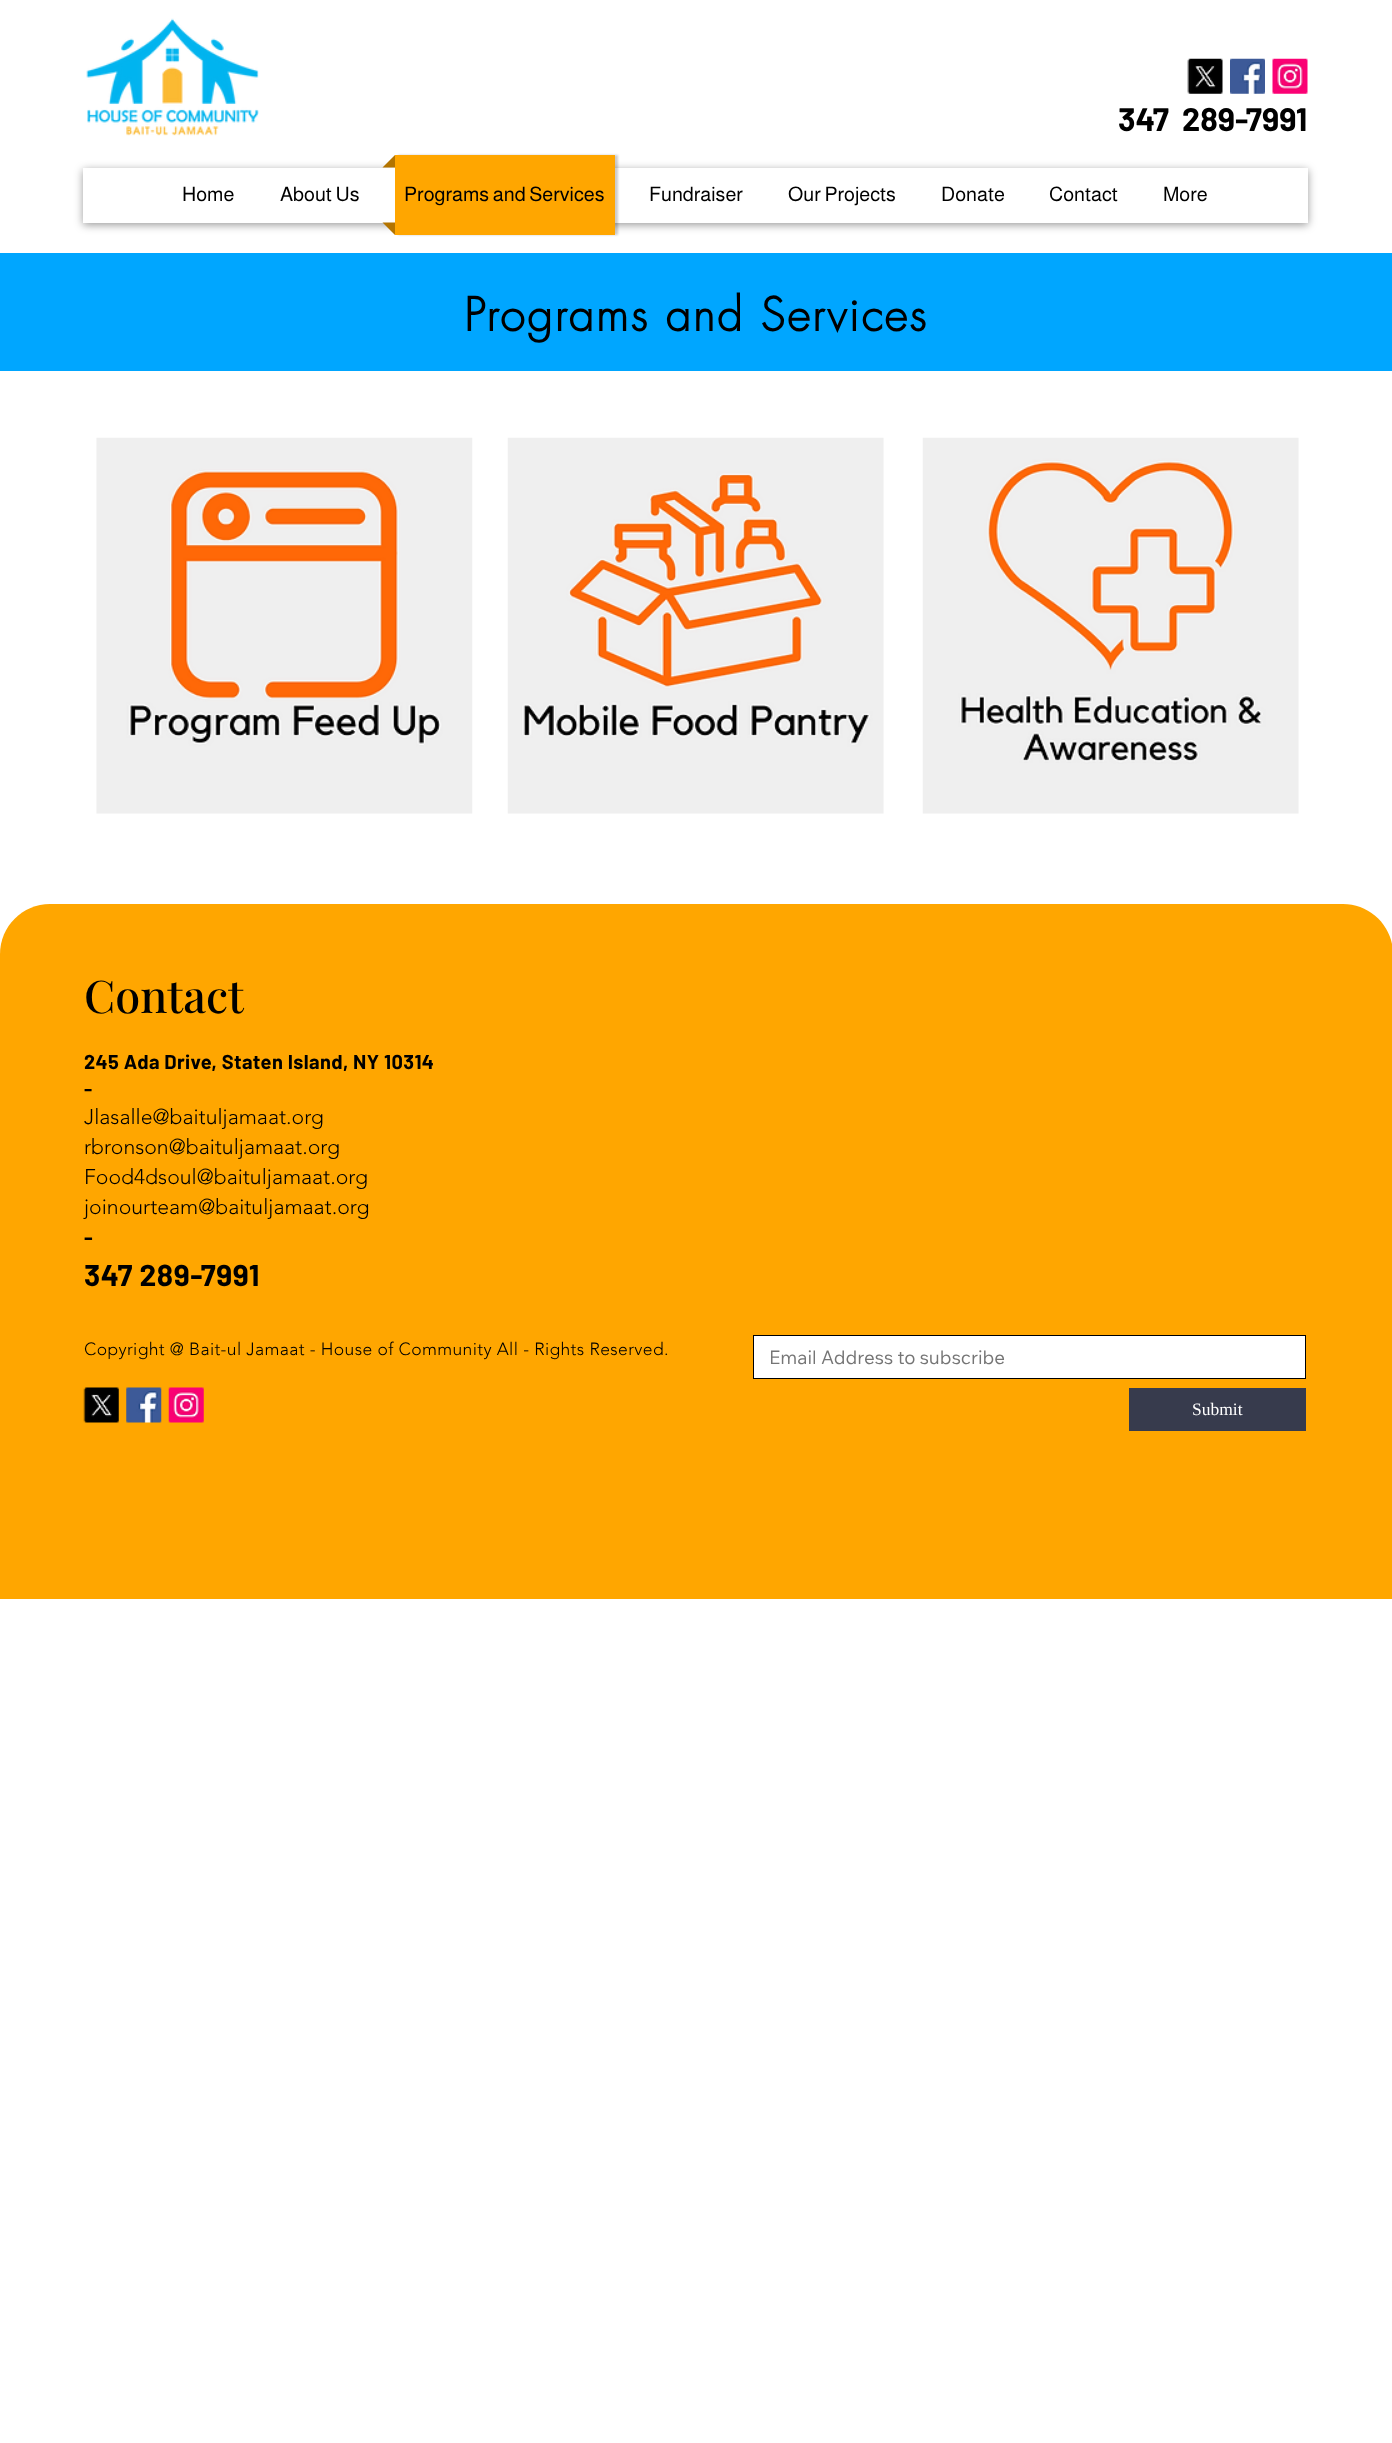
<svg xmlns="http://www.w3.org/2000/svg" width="1392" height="2443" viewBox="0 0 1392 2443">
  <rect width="100%" height="100%" fill="rgb(255,255,255)"/>
  <image x="86" y="18" width="173" height="118" href="pic1.png"/>
  <image x="1187" y="58" width="36" height="36" href="pic2.png"/>
  <image x="1230" y="58" width="35" height="36" href="pic3.png"/>
  <image x="1272" y="58" width="36" height="36" href="pic4.png"/>
  <text x="1118" y="131" font-family="Barlow" font-size="32.5" font-weight="bold" fill="rgb(0,0,0)" xml:space="preserve">347  289-7991</text>
  <rect x="83" y="170" width="1225" height="55" fill="rgba(0,0,0,0.4)" filter="blur(4px)"/>
  <rect x="83" y="168" width="1225" height="55" fill="rgb(255,255,255)"/>
  <g font-family="Almarai" font-size="20" fill="rgb(0,0,0)">
    <text x="182" y="201">Home</text>
    <text x="280" y="201">About Us</text>
  </g>
  <rect x="398" y="155" width="220" height="80" fill="rgba(0,0,0,0.2)" filter="blur(1px)"/>
  <path d="M395 167.5H382.5L395 155Z" fill="rgb(179,116,0)"/>
  <rect x="395" y="155" width="220" height="80" fill="rgb(255,166,0)"/>
  <path d="M382.5 222.5H395V235Z" fill="rgb(179,116,0)"/>
  <g font-family="Almarai" font-size="20" fill="rgb(0,0,0)">
    <text x="404" y="201">Programs and Services</text>
    <text x="649" y="201">Fundraiser</text>
    <text x="788" y="201">Our Projects</text>
    <text x="941" y="201">Donate</text>
    <text x="1049" y="201">Contact</text>
    <text x="1163" y="201">More</text>
  </g>
  <rect x="0" y="253" width="1392" height="118" fill="rgb(0,166,255)"/>
  <text x="464" y="331" font-family="futura" font-size="45" font-weight="bold" letter-spacing="2.1" fill="rgb(0,0,0)">Programs and Services</text>
  <image x="96" y="437" width="377" height="377" href="pic5.png"/>
  <image x="507" y="437" width="377" height="377" href="pic6.png"/>
  <image x="922" y="437" width="377" height="377" href="pic7.png"/>
  <path d="M50 904H1343C1370.5 904 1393 926.5 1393 954V1599H0V954C0 926.5 22.5 904 50 904Z" fill="rgb(255,166,0)"/>
  <text x="84" y="1013" font-family="Playfair Display" font-size="45" font-weight="500" fill="rgb(0,0,0)">Contact</text>
  <g font-family="Barlow" font-size="20" font-weight="bold" letter-spacing="0.4" fill="rgb(0,0,0)">
    <text>
      <tspan x="84" y="1069">245 Ada Drive, Staten Island, NY 10314</tspan>
      <tspan x="84" y="1096">-</tspan>
    </text>
  </g>
  <g font-family="'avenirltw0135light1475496'" font-size="21.25" font-weight="300" fill="rgb(0,0,0)">
    <text>
      <tspan x="84" y="1124">Jlasalle@baituljamaat.org</tspan>
      <tspan x="84" y="1154">rbronson@baituljamaat.org</tspan>
      <tspan x="84" y="1184">Food4dsoul@baituljamaat.org</tspan>
      <tspan x="84" y="1214">joinourteam@baituljamaat.org</tspan>
    </text>
  </g>
  <text x="84" y="1245" font-family="Barlow" font-size="21.25" font-weight="bold" fill="rgb(0,0,0)">-</text>
  <text x="84" y="1286" font-family="Barlow" font-size="30" font-weight="bold" letter-spacing="0.6" fill="rgb(0,0,0)">347 289-7991</text>
  <text x="84" y="1355" font-family="'avenirltw0135light1475496'" font-size="17.5" font-weight="300" letter-spacing="0.35" fill="rgb(0,0,0)">Copyright @ Bait-ul Jamaat - House of Community All - Rights Reserved.</text>
  <rect x="753.5" y="1335.5" width="552" height="43" fill="rgb(255,255,255)" stroke="rgb(0,0,0)"/>
  <text x="769" y="1364" font-family="Wix Madefor Text" font-size="18.75" fill="rgb(117,117,117)">Email Address to subscribe</text>
  <rect x="1129" y="1388" width="177" height="43" fill="rgb(55,59,77)"/>
  <text x="1192" y="1415" font-family="Liberation Serif" font-size="17.5" fill="rgb(255,255,255)">Submit</text>
  <image x="83" y="1387" width="36" height="36" href="pic8.png"/>
  <image x="126" y="1387" width="36" height="36" href="pic9.png"/>
  <image x="168" y="1387" width="36" height="36" href="pic10.png"/>
</svg>
